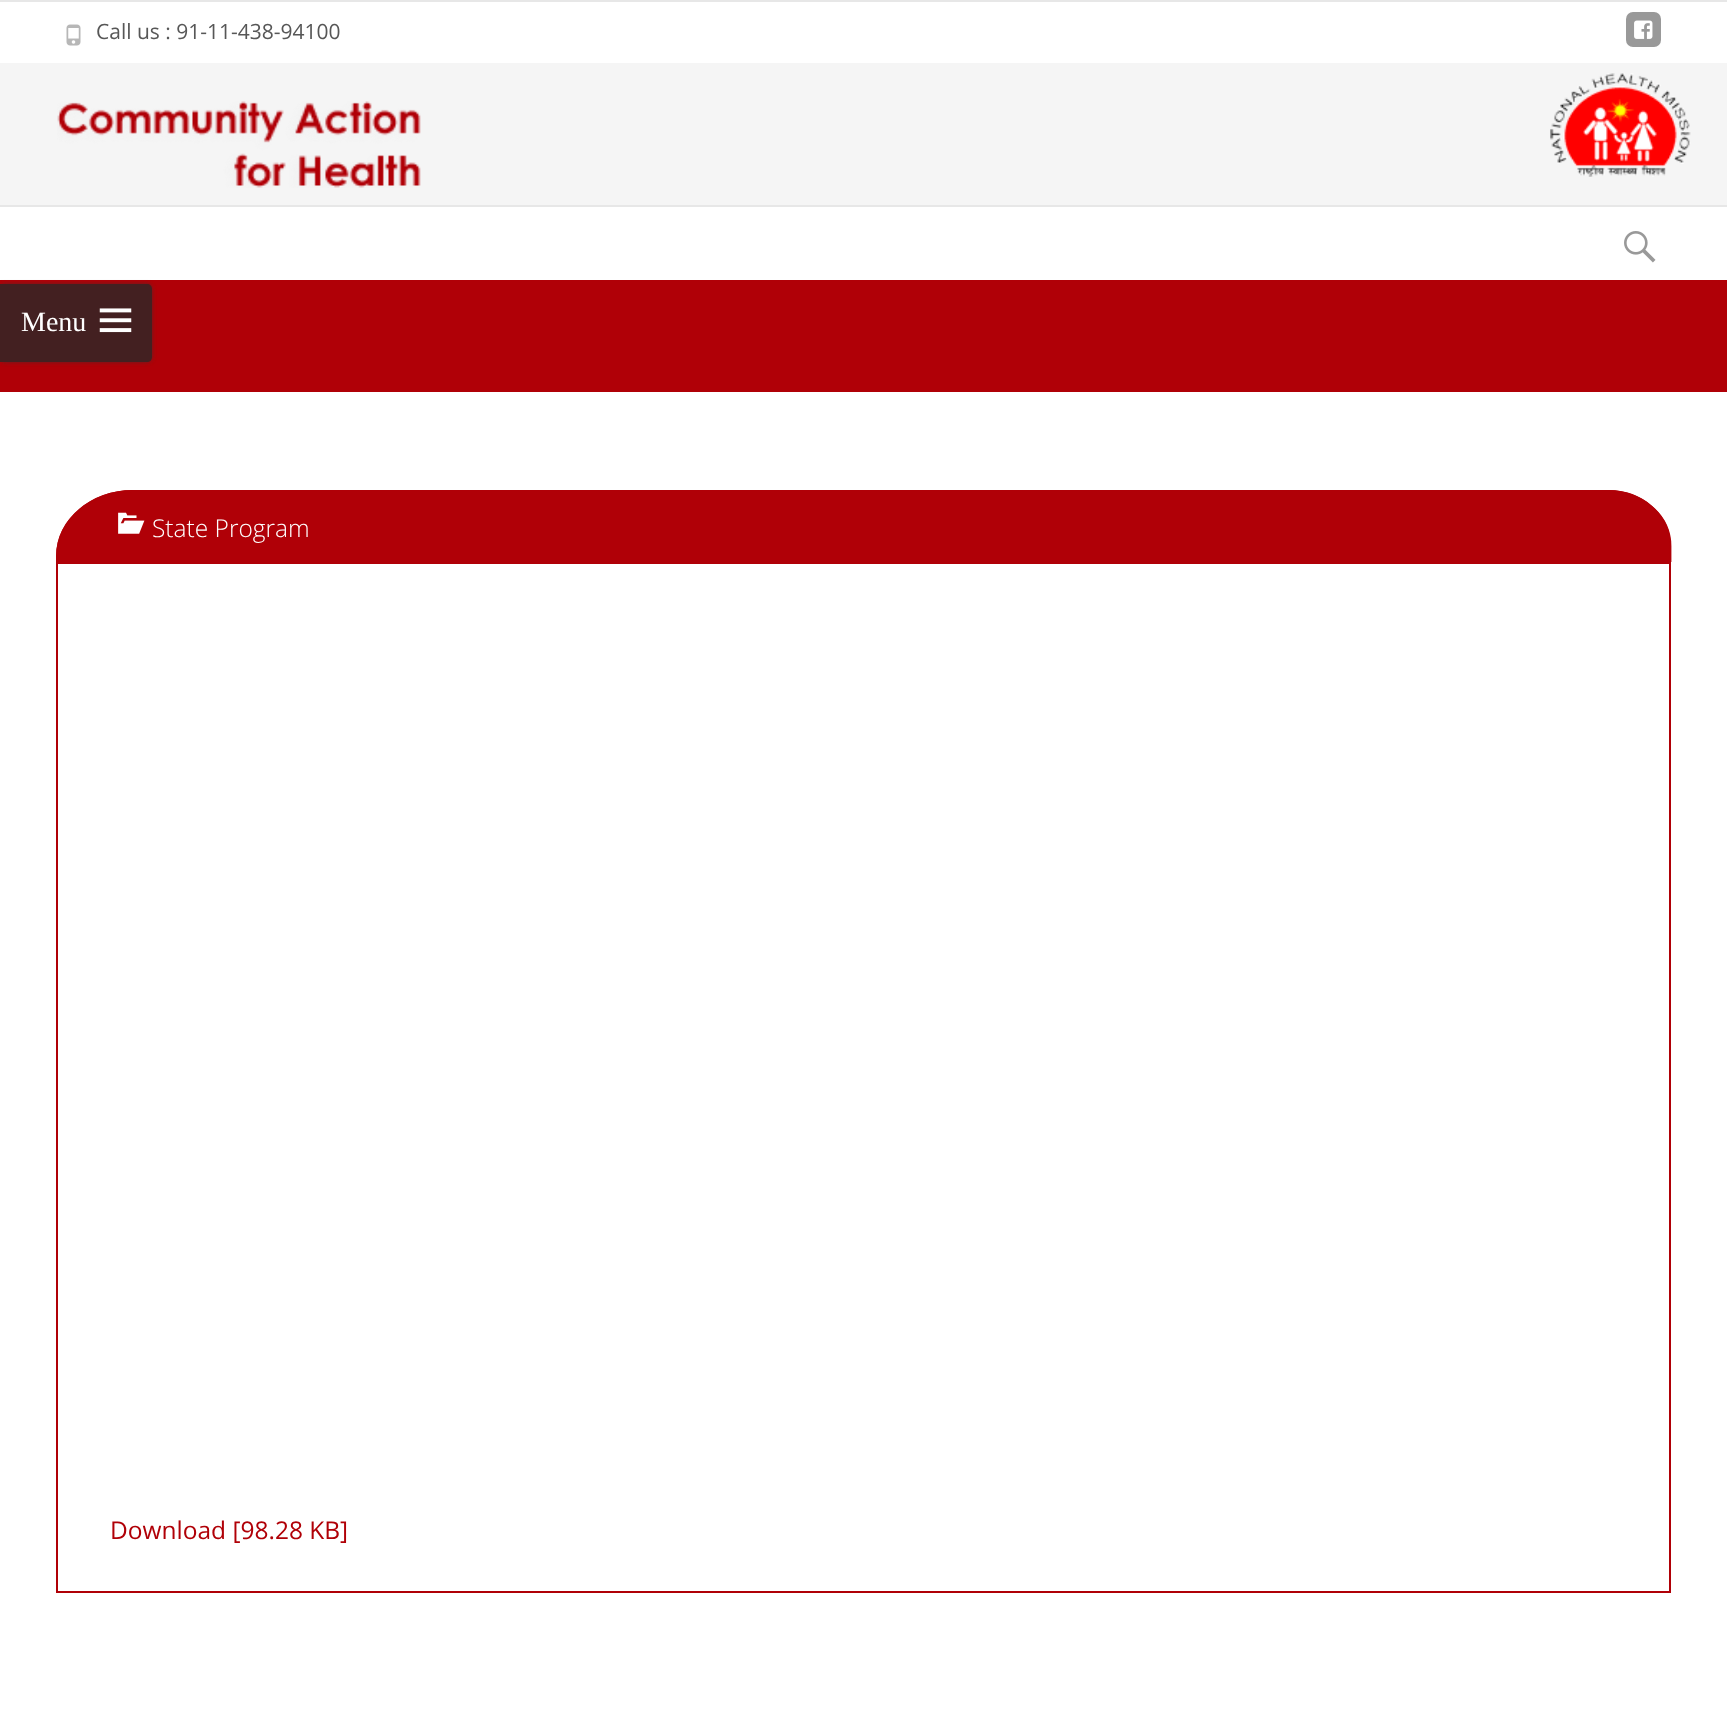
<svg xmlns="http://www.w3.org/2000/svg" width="1727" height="1721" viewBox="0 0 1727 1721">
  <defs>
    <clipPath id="clip1"><path d="M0 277H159V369H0ZM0 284H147C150 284 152 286 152 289V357C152 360 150 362 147 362H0Z" clip-rule="evenodd"/></clipPath>
  </defs>
  <rect width="100%" height="100%" fill="rgb(255,255,255)"/>
  <rect x="0" y="0" width="1727" height="2" fill="rgb(231,231,231)"/>
  <image x="66" y="24" width="15" height="22" href="pic1.png"/>
  <text x="96" y="39" font-family="Open Sans" font-size="21" fill="rgb(87,87,87)">Call us : 91-11-438-94100</text>
  <rect x="1626" y="12" width="35" height="35" rx="7" fill="rgb(153,153,153)"/>
  <image x="1634" y="20" width="19" height="19" href="pic2.png"/>
  <rect x="0" y="280" width="1727" height="112" fill="rgb(176,0,7)"/>
  <rect x="0" y="63" width="1727" height="142" fill="rgb(245,245,245)"/>
  <rect x="0" y="205" width="1727" height="2" fill="rgb(231,231,231)"/>
  <image x="57" y="101" width="364" height="87" href="pic3.png"/>
  <image x="1550" y="73" width="141" height="104" href="pic4.png"/>
  <image x="1624" y="231" width="32" height="32" href="pic5.png"/>
  <g clip-path="url(#clip1)">
    <rect x="0" y="284" width="152" height="78" rx="5" fill="rgba(50,50,50,0.64)" filter="blur(2px)"/>
  </g>
  <path d="M0 284H147C150 284 152 286 152 289V357C152 360 150 362 147 362H0Z" fill="rgba(40,40,40,0.8)"/>
  <text x="21" y="331" font-family="Liberation Serif" font-size="28" fill="rgb(255,255,255)">Menu</text>
  <image x="99" y="308" width="33" height="25" href="pic6.png"/>
  <path d="M133 490H1608C1643 490 1671 515 1671 546V562H56V556C56 520 90 490 133 490Z" fill="rgb(176,0,7)"/>
  <path d="M133 491H1608C1642.5 491 1670.5 515.5 1670.5 546V561H57V556.5C57 520.5 91 491 133 491Z" fill="none" stroke="rgb(176,0,7)" stroke-width="1.8"/>
  <image x="118" y="512" width="27" height="22" href="pic7.png"/>
  <text x="152" y="537" font-family="Open Sans" font-size="24.5" font-weight="300" fill="rgb(255,255,255)">State Program</text>
  <rect x="57" y="563" width="1613" height="1029" fill="none" stroke="rgb(176,0,7)" stroke-width="2"/>
  <text x="110" y="1539" font-family="Open Sans" font-size="24.5" fill="rgb(176,0,7)">Download [98.28 KB]</text>
</svg>
